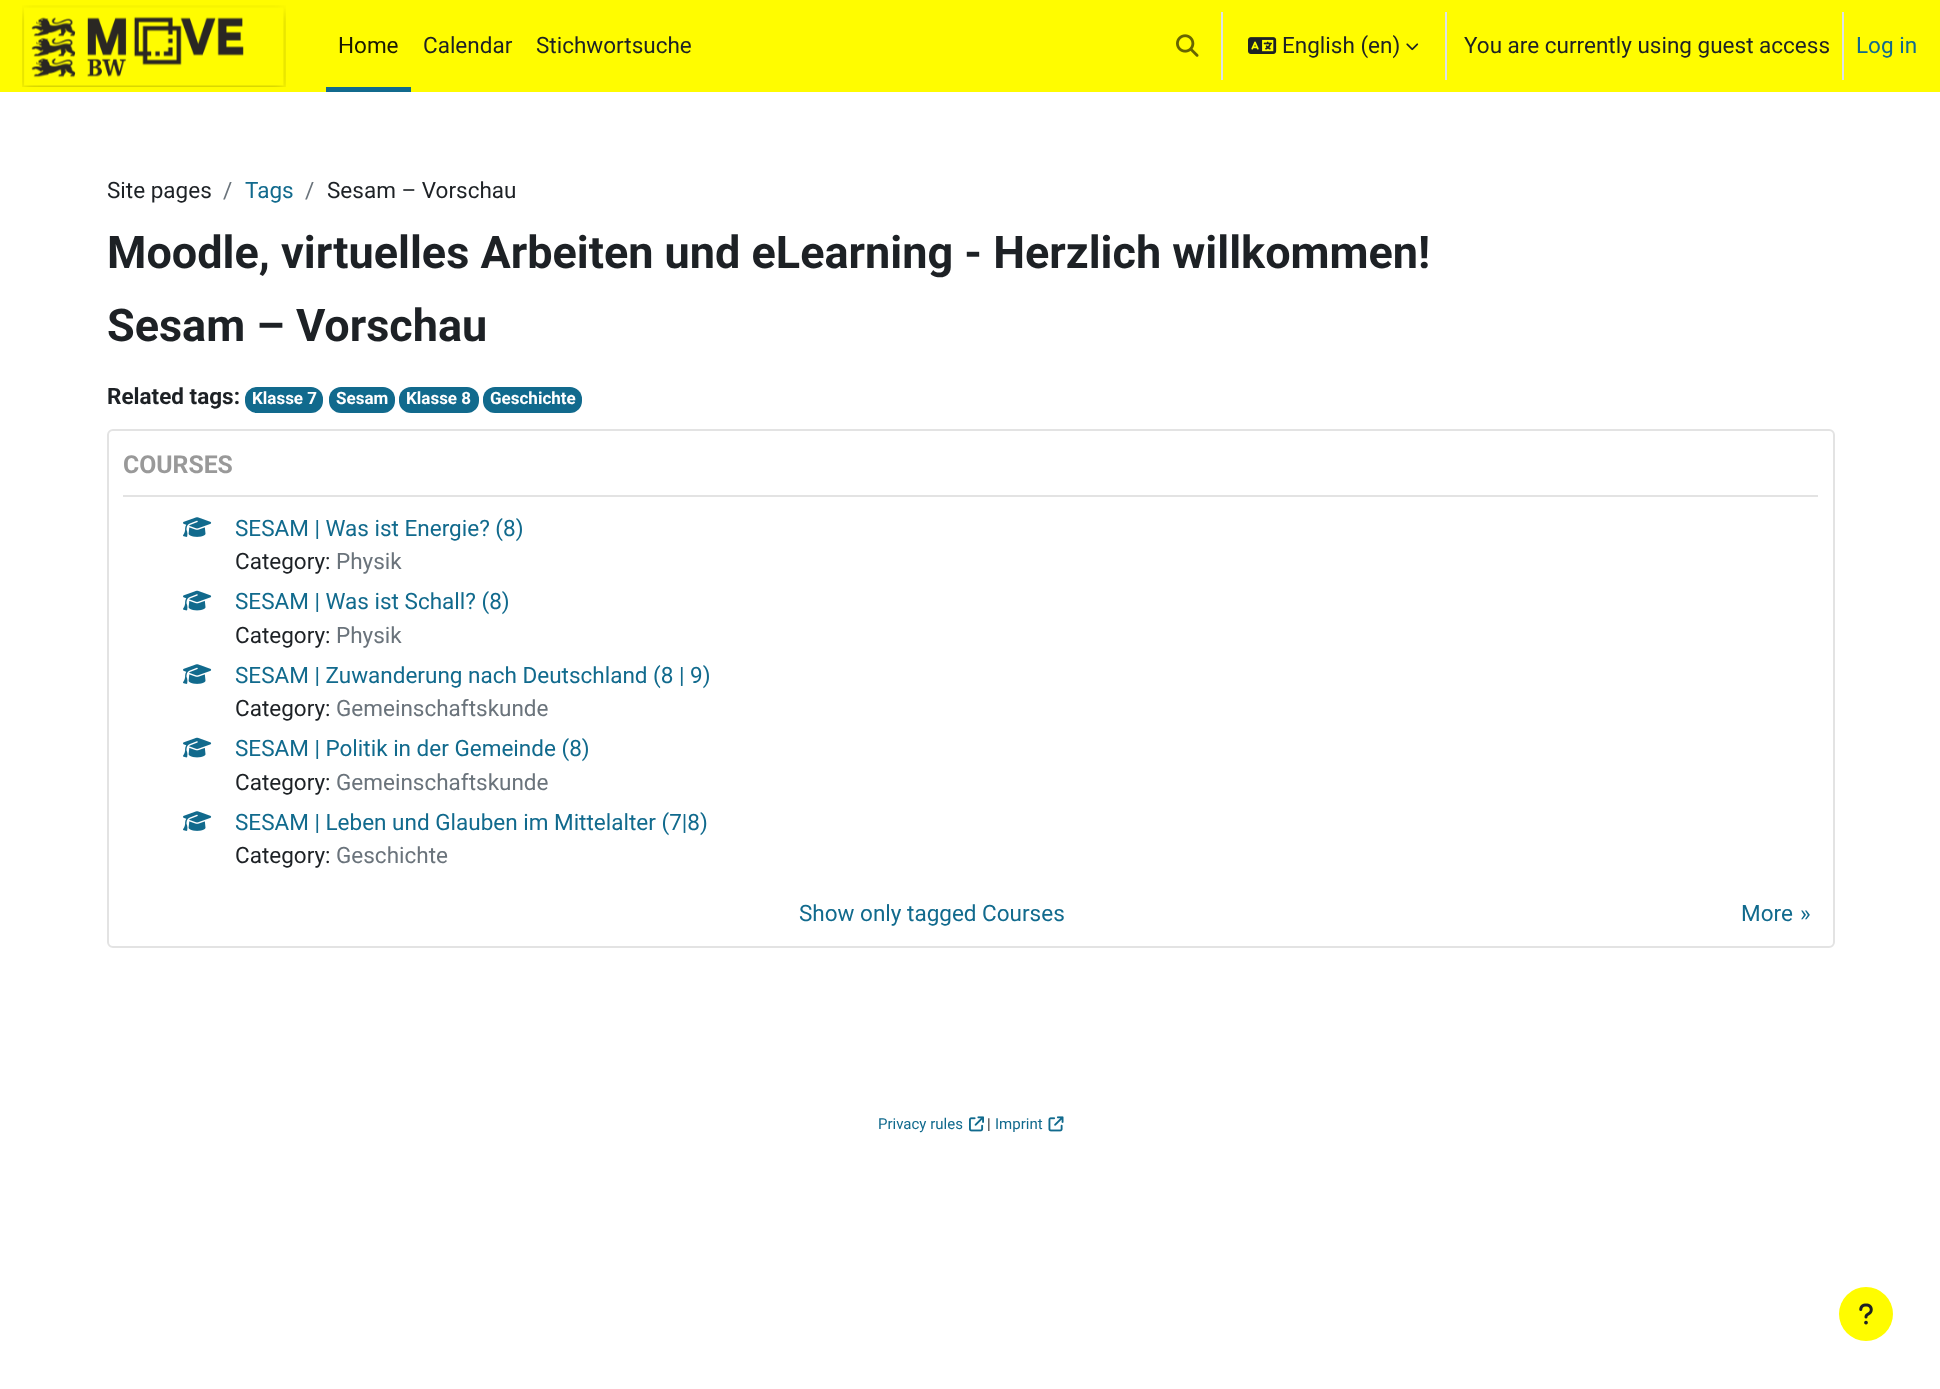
<svg xmlns="http://www.w3.org/2000/svg" width="1940" height="1389" viewBox="0 0 1940 1389">
  <rect width="100%" height="100%" fill="rgb(255,255,255)"/>
  <rect x="0" y="0" width="1940" height="92" fill="rgb(255,252,0)"/>
  <image x="22" y="5" width="264" height="82" href="pic1.png"/>
  <rect x="326" y="87" width="85" height="5" fill="rgb(17,106,141)"/>
  <text x="338" y="53" font-family="Roboto" font-size="22.5" fill="rgb(26,25,0)">Home</text>
  <g font-family="Roboto" font-size="22.5" fill="rgb(29,33,37)">
    <text x="423" y="53">Calendar</text>
    <text x="536" y="53">Stichwortsuche</text>
  </g>
  <image x="1176" y="34" width="23" height="23" href="pic2.png"/>
  <rect x="1221" y="12" width="2" height="68" fill="rgb(222,226,230)"/>
  <image x="1248" y="37" width="29" height="17" href="pic3.png"/>
  <text x="1282" y="53" font-family="Roboto" font-size="22.5" fill="rgb(29,33,37)">English (en)</text>
  <image x="1406" y="43" width="13" height="8" href="pic4.png"/>
  <rect x="1445" y="12" width="2" height="68" fill="rgb(222,226,230)"/>
  <text x="1464" y="53" font-family="Roboto" font-size="22.5" fill="rgb(29,33,37)">You are currently using guest access</text>
  <rect x="1842" y="12" width="2" height="68" fill="rgb(222,226,230)"/>
  <text x="1856" y="53" font-family="Roboto" font-size="22.5" fill="rgb(17,106,141)">Log in</text>
  <text x="107" y="198" font-family="Roboto" font-size="22.5" fill="rgb(29,33,37)">Site pages</text>
  <text x="223" y="198" font-family="Roboto" font-size="22.5" fill="rgb(106,115,123)">/</text>
  <text x="245" y="198" font-family="Roboto" font-size="22.5" fill="rgb(17,106,141)">Tags</text>
  <text x="305" y="198" font-family="Roboto" font-size="22.5" fill="rgb(106,115,123)">/</text>
  <text x="327" y="198" font-family="Roboto" font-size="22.5" fill="rgb(29,33,37)">Sesam – Vorschau</text>
  <g font-family="Roboto" font-size="45" font-weight="bold" fill="rgb(29,33,37)">
    <text>
      <tspan x="107" y="268">Moodle, virtuelles Arbeiten und eLearning - Herzlich willkommen!</tspan>
      <tspan x="107" y="341">Sesam – Vorschau</tspan>
    </text>
  </g>
  <text x="107" y="404" font-family="Roboto" font-size="22.5" font-weight="bold" fill="rgb(29,33,37)">Related tags:</text>
  <rect x="245" y="387" width="78" height="26" rx="12" fill="rgb(17,106,141)"/>
  <text x="252" y="404" font-family="Roboto" font-size="17" font-weight="bold" fill="rgb(255,255,255)">Klasse 7</text>
  <rect x="329" y="387" width="66" height="26" rx="12" fill="rgb(17,106,141)"/>
  <text x="336" y="404" font-family="Roboto" font-size="17" font-weight="bold" fill="rgb(255,255,255)">Sesam</text>
  <rect x="399" y="387" width="80" height="26" rx="12" fill="rgb(17,106,141)"/>
  <text x="406" y="404" font-family="Roboto" font-size="17" font-weight="bold" fill="rgb(255,255,255)">Klasse 8</text>
  <rect x="483" y="387" width="99" height="26" rx="12" fill="rgb(17,106,141)"/>
  <text x="490" y="404" font-family="Roboto" font-size="17" font-weight="bold" fill="rgb(255,255,255)">Geschichte</text>
  <rect x="108" y="430" width="1726" height="517" rx="5" fill="none" stroke="rgb(227,227,227)" stroke-width="2"/>
  <rect x="123" y="495" width="1695" height="2" fill="rgb(227,227,227)"/>
  <text x="123" y="473" font-family="Roboto" font-size="24.75" font-weight="bold" fill="rgb(153,153,153)">COURSES</text>
  <image x="183" y="517" width="29" height="20" href="pic5.png"/>
  <text x="235" y="536" font-family="Roboto" font-size="22.5" fill="rgb(17,106,141)">SESAM | Was ist Energie? (8)</text>
  <text x="235" y="569" font-family="Roboto" font-size="22.5" fill="rgb(29,33,37)">Category:</text>
  <text x="336" y="569" font-family="Roboto" font-size="22.5" fill="rgb(106,115,123)">Physik</text>
  <image x="183" y="590" width="29" height="21" href="pic6.png"/>
  <text x="235" y="609" font-family="Roboto" font-size="22.5" fill="rgb(17,106,141)">SESAM | Was ist Schall? (8)</text>
  <text x="235" y="643" font-family="Roboto" font-size="22.5" fill="rgb(29,33,37)">Category:</text>
  <text x="336" y="643" font-family="Roboto" font-size="22.5" fill="rgb(106,115,123)">Physik</text>
  <image x="183" y="664" width="29" height="20" href="pic5.png"/>
  <text x="235" y="683" font-family="Roboto" font-size="22.5" fill="rgb(17,106,141)">SESAM | Zuwanderung nach Deutschland (8 | 9)</text>
  <text x="235" y="716" font-family="Roboto" font-size="22.5" fill="rgb(29,33,37)">Category:</text>
  <text x="336" y="716" font-family="Roboto" font-size="22.5" fill="rgb(106,115,123)">Gemeinschaftskunde</text>
  <image x="183" y="737" width="29" height="21" href="pic6.png"/>
  <text x="235" y="756" font-family="Roboto" font-size="22.5" fill="rgb(17,106,141)">SESAM | Politik in der Gemeinde (8)</text>
  <text x="235" y="790" font-family="Roboto" font-size="22.5" fill="rgb(29,33,37)">Category:</text>
  <text x="336" y="790" font-family="Roboto" font-size="22.5" fill="rgb(106,115,123)">Gemeinschaftskunde</text>
  <image x="183" y="811" width="29" height="20" href="pic5.png"/>
  <text x="235" y="830" font-family="Roboto" font-size="22.5" fill="rgb(17,106,141)">SESAM | Leben und Glauben im Mittelalter (7|8)</text>
  <text x="235" y="863" font-family="Roboto" font-size="22.5" fill="rgb(29,33,37)">Category:</text>
  <text x="336" y="863" font-family="Roboto" font-size="22.5" fill="rgb(106,115,123)">Geschichte</text>
  <g font-family="Roboto" font-size="22.5" fill="rgb(17,106,141)">
    <text x="799" y="921">Show only tagged Courses</text>
    <text x="1741" y="921">More</text>
    <text x="1800" y="921">»</text>
  </g>
  <text x="878" y="1129" font-family="Roboto" font-size="15" fill="rgb(17,106,141)">Privacy rules</text>
  <image x="969" y="1116" width="15" height="16" href="pic7.png"/>
  <text x="987" y="1129" font-family="Roboto" font-size="15" fill="rgb(29,33,37)">|</text>
  <text x="995" y="1129" font-family="Roboto" font-size="15" fill="rgb(17,106,141)">Imprint</text>
  <image x="1048" y="1116" width="16" height="16" href="pic8.png"/>
  <circle cx="1866" cy="1314" r="27" fill="rgb(255,252,0)"/>
  <image x="1859" y="1303" width="14" height="22" href="pic9.png"/>
</svg>
